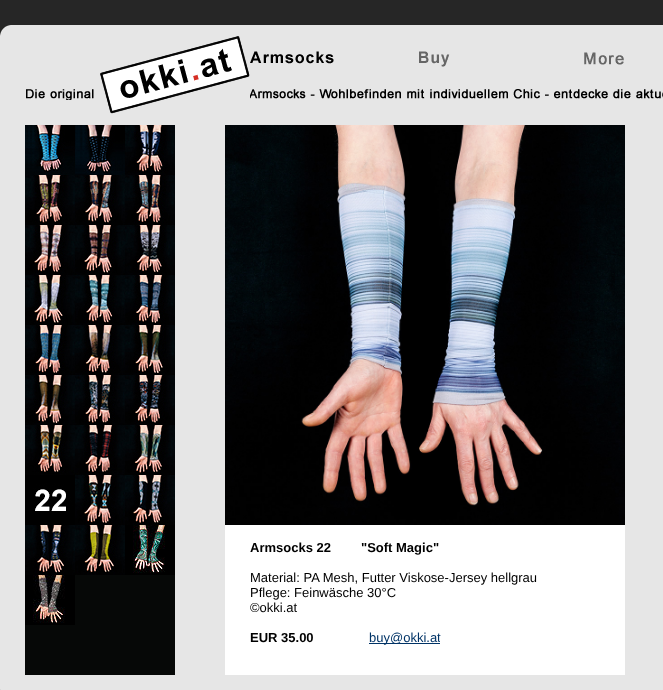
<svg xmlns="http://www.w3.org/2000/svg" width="663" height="690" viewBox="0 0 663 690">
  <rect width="100%" height="100%" fill="rgb(38,38,38)"/>
  <rect x="0" y="25" width="663" height="665" fill="rgb(230,230,230)"/>
  <image x="0" y="25" width="11" height="11" href="pic1.png"/>
  <image x="100" y="36" width="150" height="78" href="pic2.png"/>
  <image x="250" y="51" width="84" height="13" href="pic3.png"/>
  <image x="419" y="51" width="31" height="16" href="pic4.png"/>
  <image x="584" y="52" width="40" height="13" href="pic5.png"/>
  <image x="26" y="89" width="68" height="11" href="pic6.png"/>
  <image x="250" y="89" width="413" height="10" href="pic7.png"/>
  <image x="25" y="125" width="50" height="50" href="pic8.png"/>
  <image x="75" y="125" width="50" height="50" href="pic9.png"/>
  <image x="125" y="125" width="50" height="50" href="pic10.png"/>
  <image x="225" y="125" width="400" height="400" href="pic11.png"/>
  <image x="25" y="175" width="50" height="50" href="pic12.png"/>
  <image x="75" y="175" width="50" height="50" href="pic13.png"/>
  <image x="125" y="175" width="50" height="50" href="pic14.png"/>
  <image x="25" y="225" width="50" height="50" href="pic15.png"/>
  <image x="75" y="225" width="50" height="50" href="pic16.png"/>
  <image x="125" y="225" width="50" height="50" href="pic17.png"/>
  <image x="25" y="275" width="50" height="50" href="pic18.png"/>
  <image x="75" y="275" width="50" height="50" href="pic19.png"/>
  <image x="125" y="275" width="50" height="50" href="pic20.png"/>
  <image x="25" y="325" width="50" height="50" href="pic21.png"/>
  <image x="75" y="325" width="50" height="50" href="pic22.png"/>
  <image x="125" y="325" width="50" height="50" href="pic23.png"/>
  <image x="25" y="375" width="50" height="50" href="pic24.png"/>
  <image x="75" y="375" width="50" height="50" href="pic25.png"/>
  <image x="125" y="375" width="50" height="50" href="pic26.png"/>
  <image x="25" y="425" width="50" height="50" href="pic27.png"/>
  <image x="75" y="425" width="50" height="50" href="pic28.png"/>
  <image x="125" y="425" width="50" height="50" href="pic29.png"/>
  <image x="25" y="475" width="50" height="50" href="pic30.png"/>
  <image x="75" y="475" width="50" height="50" href="pic31.png"/>
  <image x="125" y="475" width="50" height="50" href="pic32.png"/>
  <image x="25" y="575" width="50" height="50" href="pic33.png"/>
  <rect x="75" y="575" width="100" height="50" fill="rgb(6,8,7)"/>
  <image x="25" y="525" width="50" height="50" href="pic34.png"/>
  <image x="75" y="525" width="50" height="50" href="pic35.png"/>
  <image x="125" y="525" width="50" height="50" href="pic36.png"/>
  <rect x="225" y="525" width="400" height="150" fill="rgb(255,255,255)"/>
  <g font-family="Liberation Sans" font-size="13" font-weight="bold" fill="rgb(0,0,0)">
    <text x="250" y="552">Armsocks 22</text>
    <text x="361" y="552">"Soft Magic"</text>
  </g>
  <g font-family="Liberation Sans" font-size="13" fill="rgb(0,0,0)">
    <text>
      <tspan x="250" y="582">Material: PA Mesh, Futter Viskose-Jersey hellgrau</tspan>
      <tspan x="250" y="597">Pflege: Feinwäsche 30°C</tspan>
      <tspan x="250" y="612">©okki.at</tspan>
    </text>
  </g>
  <text x="250" y="642" font-family="Liberation Sans" font-size="13" font-weight="bold" fill="rgb(0,0,0)">EUR 35.00</text>
  <rect x="369" y="643" width="71" height="1" fill="rgb(0,51,102)"/>
  <text x="369" y="642" font-family="Liberation Sans" font-size="13" fill="rgb(0,51,102)">buy@okki.at</text>
  <rect x="440" y="641" width="1" height="1" fill="rgb(255,255,255)"/>
  <rect x="25" y="625" width="150" height="50" fill="rgb(6,8,7)"/>
  <rect x="0" y="689" width="1" height="1" fill="rgb(218,218,218)"/>
</svg>
